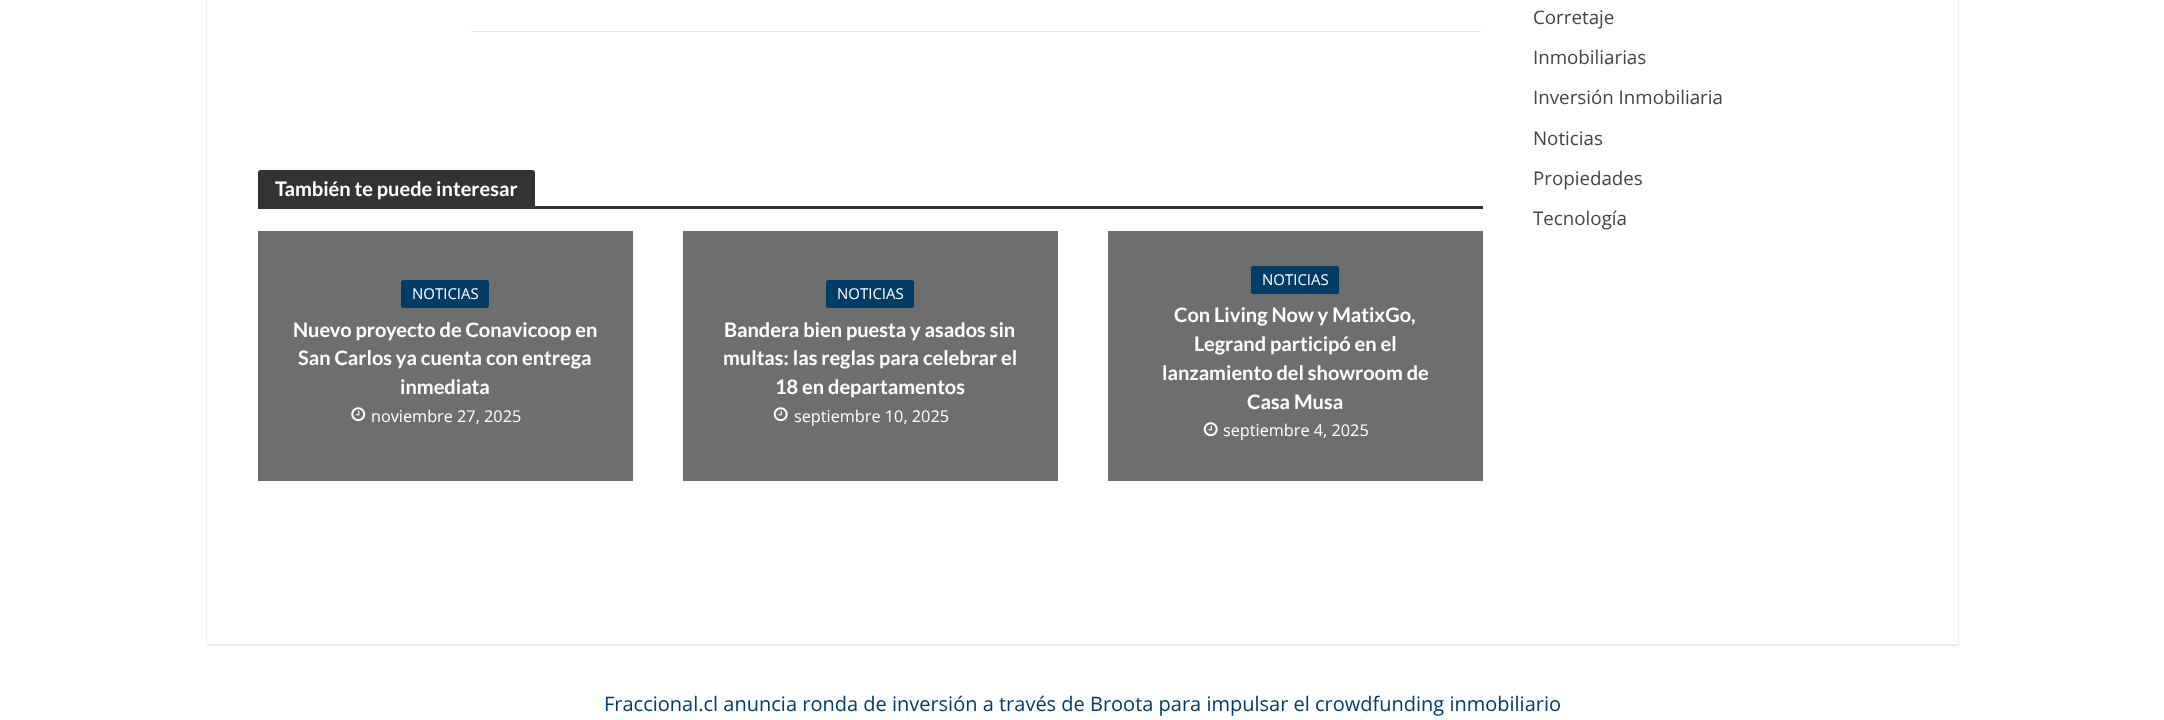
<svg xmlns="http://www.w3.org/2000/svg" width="2164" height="720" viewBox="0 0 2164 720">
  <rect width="100%" height="100%" fill="rgb(255,255,255)"/>
  <rect x="206.5" y="-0.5" width="1752" height="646" fill="none" stroke="rgb(236,236,236)"/>
  <g font-family="Open Sans" font-size="18.75" fill="rgb(68,68,68)">
    <text x="1533" y="24">Corretaje</text>
    <text x="1533" y="64">Inmobiliarias</text>
    <text x="1533" y="104">Inversión Inmobiliaria</text>
    <text x="1533" y="145">Noticias</text>
    <text x="1533" y="185">Propiedades</text>
    <text x="1533" y="225">Tecnología</text>
  </g>
  <rect x="471" y="31" width="1010" height="1" fill="rgb(227,227,227)"/>
  <path d="M260.5 170H532.5C534 170 535 171 535 172.5V206H258V172.5C258 171 259 170 260.5 170Z" fill="rgb(51,51,51)"/>
  <text x="275" y="196" font-family="Lato" font-size="20" font-weight="bold" fill="rgb(255,255,255)">También te puede interesar</text>
  <rect x="258" y="206" width="1225" height="3" fill="rgb(51,51,51)"/>
  <rect x="258" y="231" width="375" height="250" fill="rgb(110,110,110)"/>
  <rect x="401" y="280" width="88" height="28" rx="2.5" fill="rgb(0,60,104)"/>
  <text x="412" y="299" font-family="Open Sans" font-size="15" fill="rgb(255,255,255)">NOTICIAS</text>
  <g font-family="Lato" font-size="20" font-weight="bold" fill="rgb(255,255,255)">
    <text x="293" y="337">Nuevo proyecto de Conavicoop en</text>
    <text x="298" y="365">San Carlos ya cuenta con entrega</text>
    <text x="400" y="394">inmediata</text>
  </g>
  <image x="351" y="407" width="15" height="15" href="pic1.png"/>
  <text x="371" y="422" font-family="Open Sans" font-size="16.25" fill="rgb(255,255,255)">noviembre 27, 2025</text>
  <rect x="683" y="231" width="375" height="250" fill="rgb(110,110,110)"/>
  <rect x="826" y="280" width="88" height="28" rx="2.5" fill="rgb(0,60,104)"/>
  <text x="837" y="299" font-family="Open Sans" font-size="15" fill="rgb(255,255,255)">NOTICIAS</text>
  <g font-family="Lato" font-size="20" font-weight="bold" fill="rgb(255,255,255)">
    <text x="724" y="337">Bandera bien puesta y asados sin</text>
    <text x="723" y="365">multas: las reglas para celebrar el</text>
    <text x="775" y="394">18 en departamentos</text>
  </g>
  <image x="773" y="407" width="15" height="15" href="pic2.png"/>
  <text x="794" y="422" font-family="Open Sans" font-size="16.25" fill="rgb(255,255,255)">septiembre 10, 2025</text>
  <rect x="1108" y="231" width="375" height="250" fill="rgb(110,110,110)"/>
  <rect x="1251" y="266" width="88" height="28" rx="2.5" fill="rgb(0,60,104)"/>
  <text x="1262" y="285" font-family="Open Sans" font-size="15" fill="rgb(255,255,255)">NOTICIAS</text>
  <g font-family="Lato" font-size="20" font-weight="bold" fill="rgb(255,255,255)">
    <text x="1174" y="322">Con Living Now y MatixGo,</text>
    <text x="1194" y="351">Legrand participó en el</text>
    <text x="1162" y="380">lanzamiento del showroom de</text>
    <text x="1247" y="409">Casa Musa</text>
  </g>
  <image x="1203" y="422" width="15" height="15" href="pic2.png"/>
  <text x="1223" y="436" font-family="Open Sans" font-size="16.25" fill="rgb(255,255,255)">septiembre 4, 2025</text>
  <rect x="208" y="644" width="1750" height="1" fill="rgb(235,235,235)"/>
  <text x="604" y="711" font-family="Open Sans" font-size="20" fill="rgb(0,60,104)">Fraccional.cl anuncia ronda de inversión a través de Broota para impulsar el crowdfunding inmobiliario</text>
</svg>
